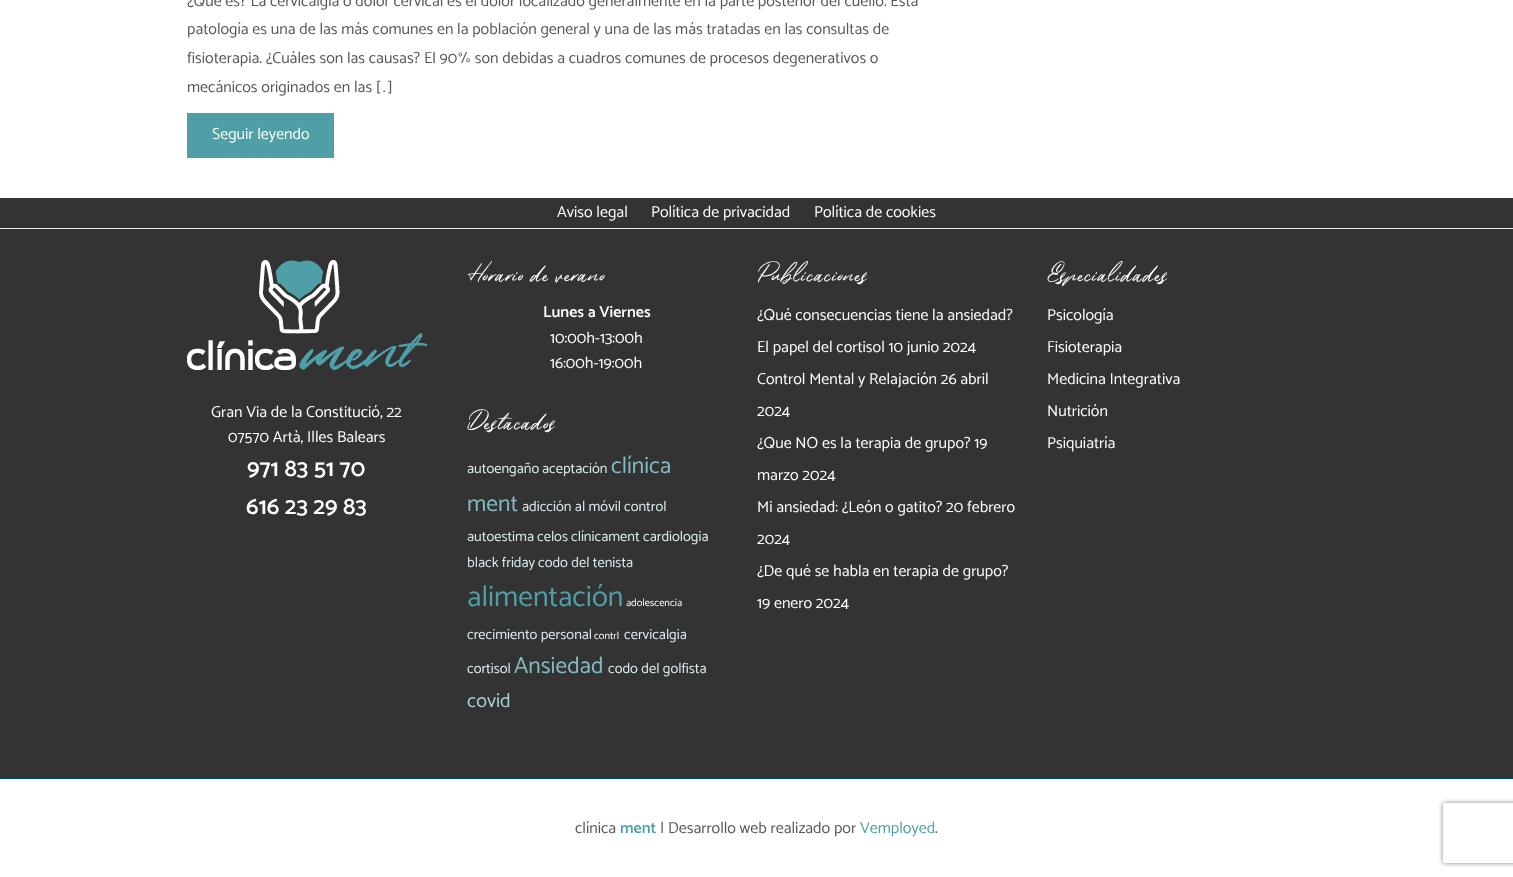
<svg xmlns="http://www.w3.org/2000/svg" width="1513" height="877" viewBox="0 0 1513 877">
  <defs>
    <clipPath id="clip1"><path d="M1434 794H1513V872H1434ZM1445 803H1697C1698 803 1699 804 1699 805V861C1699 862 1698 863 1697 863H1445C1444 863 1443 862 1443 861V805C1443 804 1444 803 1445 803Z" clip-rule="evenodd"/></clipPath>
  </defs>
  <rect width="100%" height="100%" fill="rgb(255,255,255)"/>
  <g font-family="Catamaran" font-size="16" fill="rgb(84,88,89)">
    <text>
      <tspan x="187" y="6">¿Qué es? La cervicalgia o dolor cervical es el dolor localizado generalmente en la parte posterior del cuello. Esta</tspan>
      <tspan x="187" y="34">patología es una de las más comunes en la población general y una de las más tratadas en las consultas de</tspan>
      <tspan x="187" y="63">fisioterapia. ¿Cuáles son las causas? El 90% son debidas a cuadros comunes de procesos degenerativos o</tspan>
      <tspan x="187" y="92">mecánicos originados en las […]</tspan>
    </text>
  </g>
  <rect x="187" y="113" width="147" height="45" fill="rgb(79,159,166)"/>
  <text x="212" y="139" font-family="Catamaran" font-size="16" fill="rgb(255,255,255)">Seguir leyendo</text>
  <rect x="0" y="198" width="1513" height="30" fill="rgb(51,51,51)"/>
  <rect x="0" y="228" width="1513" height="1" fill="rgb(238,238,238)"/>
  <g font-family="Catamaran" font-size="16" fill="rgb(255,255,255)">
    <text x="557" y="217">Aviso legal</text>
    <text x="651" y="217">Política de privacidad</text>
    <text x="814" y="217">Política de cookies</text>
  </g>
  <rect x="0" y="229" width="1513" height="549" fill="rgb(51,51,51)"/>
  <image x="187" y="260" width="240" height="110" href="pic1.png"/>
  <g font-family="Catamaran" font-size="16" fill="rgb(255,255,255)">
    <text x="211" y="417">Gran Via de la Constitució, 22</text>
    <text x="228" y="442">07570 Artà, Illes Balears</text>
  </g>
  <g font-family="Catamaran" font-size="24" font-weight="600" fill="rgb(255,255,255)">
    <text x="247" y="476">971 83 51 70</text>
    <text x="246" y="514">616 23 29 83</text>
  </g>
  <text x="467" y="277" font-family="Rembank" font-size="22.5" letter-spacing="1" fill="rgb(255,255,255)">Horario de verano</text>
  <text x="543" y="317" font-family="Catamaran" font-size="16" font-weight="600" fill="rgb(255,255,255)">Lunes a Viernes</text>
  <g font-family="Catamaran" font-size="16" fill="rgb(255,255,255)">
    <text>
      <tspan x="550" y="343">10:00h-13:00h</tspan>
      <tspan x="550" y="368">16:00h-19:00h</tspan>
    </text>
  </g>
  <text x="467" y="425" font-family="Rembank" font-size="22.5" letter-spacing="1" fill="rgb(255,255,255)">Destacados</text>
  <g font-family="Catamaran" font-size="14.5" fill="rgb(219,235,237)">
    <text x="467" y="473">autoengaño</text>
    <text x="542" y="473">aceptación</text>
  </g>
  <g font-family="Catamaran" font-size="23.5" fill="rgb(131,187,192)">
    <text x="611" y="473">clínica</text>
    <text x="467" y="511">ment</text>
  </g>
  <g font-family="Catamaran" font-size="14.5" fill="rgb(219,235,237)">
    <text x="522" y="511">adicción al móvil</text>
    <text x="624" y="511">control</text>
    <text x="467" y="541">autoestima</text>
    <text x="537" y="541">celos</text>
    <text x="571" y="541">clínicament</text>
    <text x="643" y="541">cardiologia</text>
    <text x="467" y="567">black friday</text>
    <text x="538" y="567">codo del tenista</text>
  </g>
  <text x="467" y="606" font-family="Catamaran" font-size="29.5" fill="rgb(79,159,166)">alimentación</text>
  <text x="626" y="606" font-family="Catamaran" font-size="10.5" fill="rgb(255,255,255)">adolescencia</text>
  <text x="467" y="639" font-family="Catamaran" font-size="14.5" fill="rgb(219,235,237)">crecimiento personal</text>
  <text x="594" y="639" font-family="Catamaran" font-size="10.5" fill="rgb(255,255,255)">contrl</text>
  <g font-family="Catamaran" font-size="14.5" fill="rgb(219,235,237)">
    <text x="624" y="639">cervicalgia</text>
    <text x="467" y="673">cortisol</text>
  </g>
  <text x="514" y="673" font-family="Catamaran" font-size="23.5" fill="rgb(131,187,192)">Ansiedad</text>
  <text x="608" y="673" font-family="Catamaran" font-size="14.5" fill="rgb(219,235,237)">codo del golfista</text>
  <text x="467" y="707" font-family="Catamaran" font-size="20" fill="rgb(167,207,210)">covid</text>
  <text x="757" y="277" font-family="Rembank" font-size="22.5" letter-spacing="1" fill="rgb(255,255,255)">Publicaciones</text>
  <g font-family="Catamaran" font-size="16" fill="rgb(255,255,255)">
    <text x="757" y="320">¿Qué consecuencias tiene la ansiedad?</text>
    <text x="757" y="352">El papel del cortisol 10 junio 2024</text>
    <text x="757" y="384">Control Mental y Relajación 26 abril</text>
    <text x="757" y="416">2024</text>
    <text x="757" y="448">¿Que NO es la terapia de grupo? 19</text>
    <text x="757" y="480">marzo 2024</text>
    <text x="757" y="512">Mi ansiedad: ¿León o gatito? 20 febrero</text>
    <text x="757" y="544">2024</text>
    <text x="757" y="576">¿De qué se habla en terapia de grupo?</text>
    <text x="757" y="608">19 enero 2024</text>
  </g>
  <text x="1047" y="277" font-family="Rembank" font-size="22.5" letter-spacing="1" fill="rgb(255,255,255)">Especialidades</text>
  <g font-family="Catamaran" font-size="16" fill="rgb(255,255,255)">
    <text x="1047" y="320">Psicología</text>
    <text x="1047" y="352">Fisioterapia</text>
    <text x="1047" y="384">Medicina Integrativa</text>
    <text x="1047" y="416">Nutrición</text>
    <text x="1047" y="448">Psiquiatría</text>
  </g>
  <rect x="0" y="778" width="1513" height="1" fill="rgb(0,74,124)"/>
  <text x="575" y="833" font-family="Catamaran" font-size="16" fill="rgb(84,88,89)">clínica</text>
  <text x="620" y="833" font-family="Catamaran" font-size="16" font-weight="600" fill="rgb(79,159,166)">ment</text>
  <text x="660" y="833" font-family="Catamaran" font-size="16" fill="rgb(84,88,89)">| Desarrollo web realizado por</text>
  <text x="860" y="833" font-family="Catamaran" font-size="16" fill="rgb(79,159,166)">Vemployed</text>
  <text x="935" y="833" font-family="Catamaran" font-size="16" fill="rgb(84,88,89)">.</text>
  <g clip-path="url(#clip1)">
    <rect x="1443" y="803" width="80" height="60" rx="2" fill="rgb(128,128,128)" filter="blur(2.5px)"/>
  </g>
</svg>
